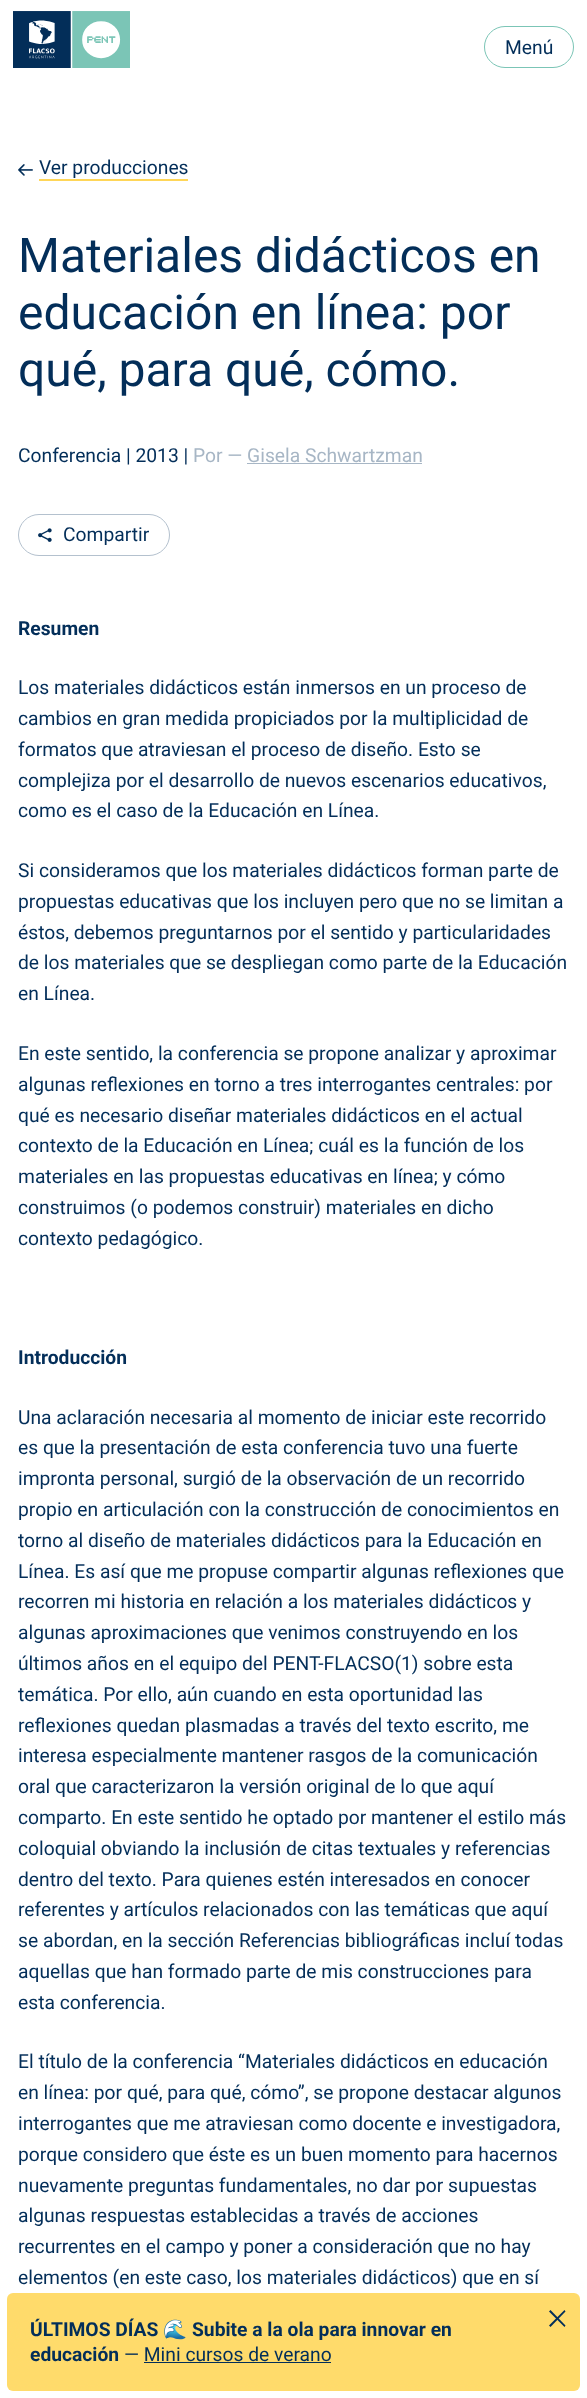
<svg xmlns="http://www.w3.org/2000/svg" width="587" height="2398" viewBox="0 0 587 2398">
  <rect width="100%" height="100%" fill="rgb(255,255,255)"/>
  <image x="13" y="11" width="117" height="57" href="pic1.png"/>
  <rect x="484.5" y="26.5" width="89" height="41" rx="20.5" fill="none" stroke="rgb(123,197,182)"/>
  <text x="505" y="54" font-family="Roboto" font-size="19.25" fill="rgb(3,46,89)">Menú</text>
  <image x="18" y="164" width="15" height="12" href="pic2.png"/>
  <rect x="39" y="179" width="149" height="2" fill="rgb(255,214,88)"/>
  <text x="39" y="174" font-family="Roboto" font-size="19.25" fill="rgb(3,46,89)">Ver producciones</text>
  <g font-family="Roboto" font-size="48" fill="rgb(3,46,89)">
    <text>
      <tspan x="18" y="272">Materiales didácticos en</tspan>
      <tspan x="18" y="329">educación en línea: por</tspan>
      <tspan x="18" y="386">qué, para qué, cómo.</tspan>
    </text>
  </g>
  <text x="18" y="462" font-family="Roboto" font-size="19.25" fill="rgb(3,46,89)">Conferencia | 2013 |</text>
  <text x="193" y="462" font-family="Roboto" font-size="19.25" fill="rgb(167,182,197)">Por — Gisela Schwartzman</text>
  <rect x="247" y="463" width="175" height="1" fill="rgb(167,182,197)"/>
  <rect x="18.5" y="514.5" width="151" height="41" rx="20.5" fill="none" stroke="rgb(180,193,206)"/>
  <image x="38" y="528" width="14" height="14" href="pic3.png"/>
  <text x="63" y="541" font-family="Roboto" font-size="19.25" fill="rgb(3,46,89)">Compartir</text>
  <text x="18" y="635" font-family="Roboto" font-size="19.25" font-weight="bold" fill="rgb(3,46,89)">Resumen</text>
  <g font-family="Roboto" font-size="19.25" fill="rgb(3,46,89)">
    <text>
      <tspan x="18" y="694">Los materiales didácticos están inmersos en un proceso de</tspan>
      <tspan x="18" y="725">cambios en gran medida propiciados por la multiplicidad de</tspan>
      <tspan x="18" y="756">formatos que atraviesan el proceso de diseño. Esto se</tspan>
      <tspan x="18" y="787">complejiza por el desarrollo de nuevos escenarios educativos,</tspan>
      <tspan x="18" y="817">como es el caso de la Educación en Línea.</tspan>
    </text>
    <text>
      <tspan x="18" y="877">Si consideramos que los materiales didácticos forman parte de</tspan>
      <tspan x="18" y="908">propuestas educativas que los incluyen pero que no se limitan a</tspan>
      <tspan x="18" y="939">éstos, debemos preguntarnos por el sentido y particularidades</tspan>
      <tspan x="18" y="969">de los materiales que se despliegan como parte de la Educación</tspan>
      <tspan x="18" y="1000">en Línea.</tspan>
    </text>
    <text>
      <tspan x="18" y="1060">En este sentido, la conferencia se propone analizar y aproximar</tspan>
      <tspan x="18" y="1091">algunas reflexiones en torno a tres interrogantes centrales: por</tspan>
      <tspan x="18" y="1122">qué es necesario diseñar materiales didácticos en el actual</tspan>
      <tspan x="18" y="1152">contexto de la Educación en Línea; cuál es la función de los</tspan>
      <tspan x="18" y="1183">materiales en las propuestas educativas en línea; y cómo</tspan>
      <tspan x="18" y="1214">construimos (o podemos construir) materiales en dicho</tspan>
      <tspan x="18" y="1245">contexto pedagógico.</tspan>
    </text>
  </g>
  <text x="18" y="1364" font-family="Roboto" font-size="19.25" font-weight="bold" fill="rgb(3,46,89)">Introducción</text>
  <g font-family="Roboto" font-size="19.25" fill="rgb(3,46,89)">
    <text>
      <tspan x="18" y="1424">Una aclaración necesaria al momento de iniciar este recorrido</tspan>
      <tspan x="18" y="1454">es que la presentación de esta conferencia tuvo una fuerte</tspan>
      <tspan x="18" y="1485">impronta personal, surgió de la observación de un recorrido</tspan>
      <tspan x="18" y="1516">propio en articulación con la construcción de conocimientos en</tspan>
      <tspan x="18" y="1547">torno al diseño de materiales didácticos para la Educación en</tspan>
      <tspan x="18" y="1578">Línea. Es así que me propuse compartir algunas reflexiones que</tspan>
      <tspan x="18" y="1608">recorren mi historia en relación a los materiales didácticos y</tspan>
      <tspan x="18" y="1639">algunas aproximaciones que venimos construyendo en los</tspan>
      <tspan x="18" y="1670">últimos años en el equipo del PENT-FLACSO(1) sobre esta</tspan>
      <tspan x="18" y="1701">temática. Por ello, aún cuando en esta oportunidad las</tspan>
      <tspan x="18" y="1732">reflexiones quedan plasmadas a través del texto escrito, me</tspan>
      <tspan x="18" y="1762">interesa especialmente mantener rasgos de la comunicación</tspan>
      <tspan x="18" y="1793">oral que caracterizaron la versión original de lo que aquí</tspan>
      <tspan x="18" y="1824">comparto. En este sentido he optado por mantener el estilo más</tspan>
      <tspan x="18" y="1855">coloquial obviando la inclusión de citas textuales y referencias</tspan>
      <tspan x="18" y="1886">dentro del texto. Para quienes estén interesados en conocer</tspan>
      <tspan x="18" y="1916">referentes y artículos relacionados con las temáticas que aquí</tspan>
      <tspan x="18" y="1947">se abordan, en la sección Referencias bibliográficas incluí todas</tspan>
      <tspan x="18" y="1978">aquellas que han formado parte de mis construcciones para</tspan>
      <tspan x="18" y="2009">esta conferencia.</tspan>
    </text>
    <text>
      <tspan x="18" y="2068">El título de la conferencia “Materiales didácticos en educación</tspan>
      <tspan x="18" y="2099">en línea: por qué, para qué, cómo”, se propone destacar algunos</tspan>
      <tspan x="18" y="2130">interrogantes que me atraviesan como docente e investigadora,</tspan>
      <tspan x="18" y="2161">porque considero que éste es un buen momento para hacernos</tspan>
      <tspan x="18" y="2192">nuevamente preguntas fundamentales, no dar por supuestas</tspan>
      <tspan x="18" y="2222">algunas respuestas establecidas a través de acciones</tspan>
      <tspan x="18" y="2253">recurrentes en el campo y poner a consideración que no hay</tspan>
      <tspan x="18" y="2284">elementos (en este caso, los materiales didácticos) que en sí</tspan>
    </text>
  </g>
  <rect x="7" y="2293" width="573" height="98" rx="6" fill="rgb(255,219,107)"/>
  <text x="30" y="2336" font-family="Roboto" font-size="19.25" font-weight="bold" fill="rgb(3,46,89)">ÚLTIMOS DÍAS</text>
  <text x="163" y="2336" font-family="Noto Color Emoji" font-size="19.25" font-weight="bold" fill="rgb(3,46,89)">🌊</text>
  <g font-family="Roboto" font-size="19.25" font-weight="bold" fill="rgb(3,46,89)">
    <text x="192" y="2336">Subite a la ola para innovar en</text>
    <text x="30" y="2361">educación</text>
  </g>
  <text x="124" y="2361" font-family="Roboto" font-size="19.25" fill="rgb(3,46,89)">— Mini cursos de verano</text>
  <rect x="144" y="2362" width="187" height="1" fill="rgb(3,46,89)"/>
  <path d="M549 2325.5L564.5 2310L565.5 2311.5L550.5 2327Z" fill="rgb(3,46,89)"/>
  <path d="M550.5 2310L565.5 2325.5L564.5 2327L549 2311.5Z" fill="rgb(3,46,89)"/>
</svg>
